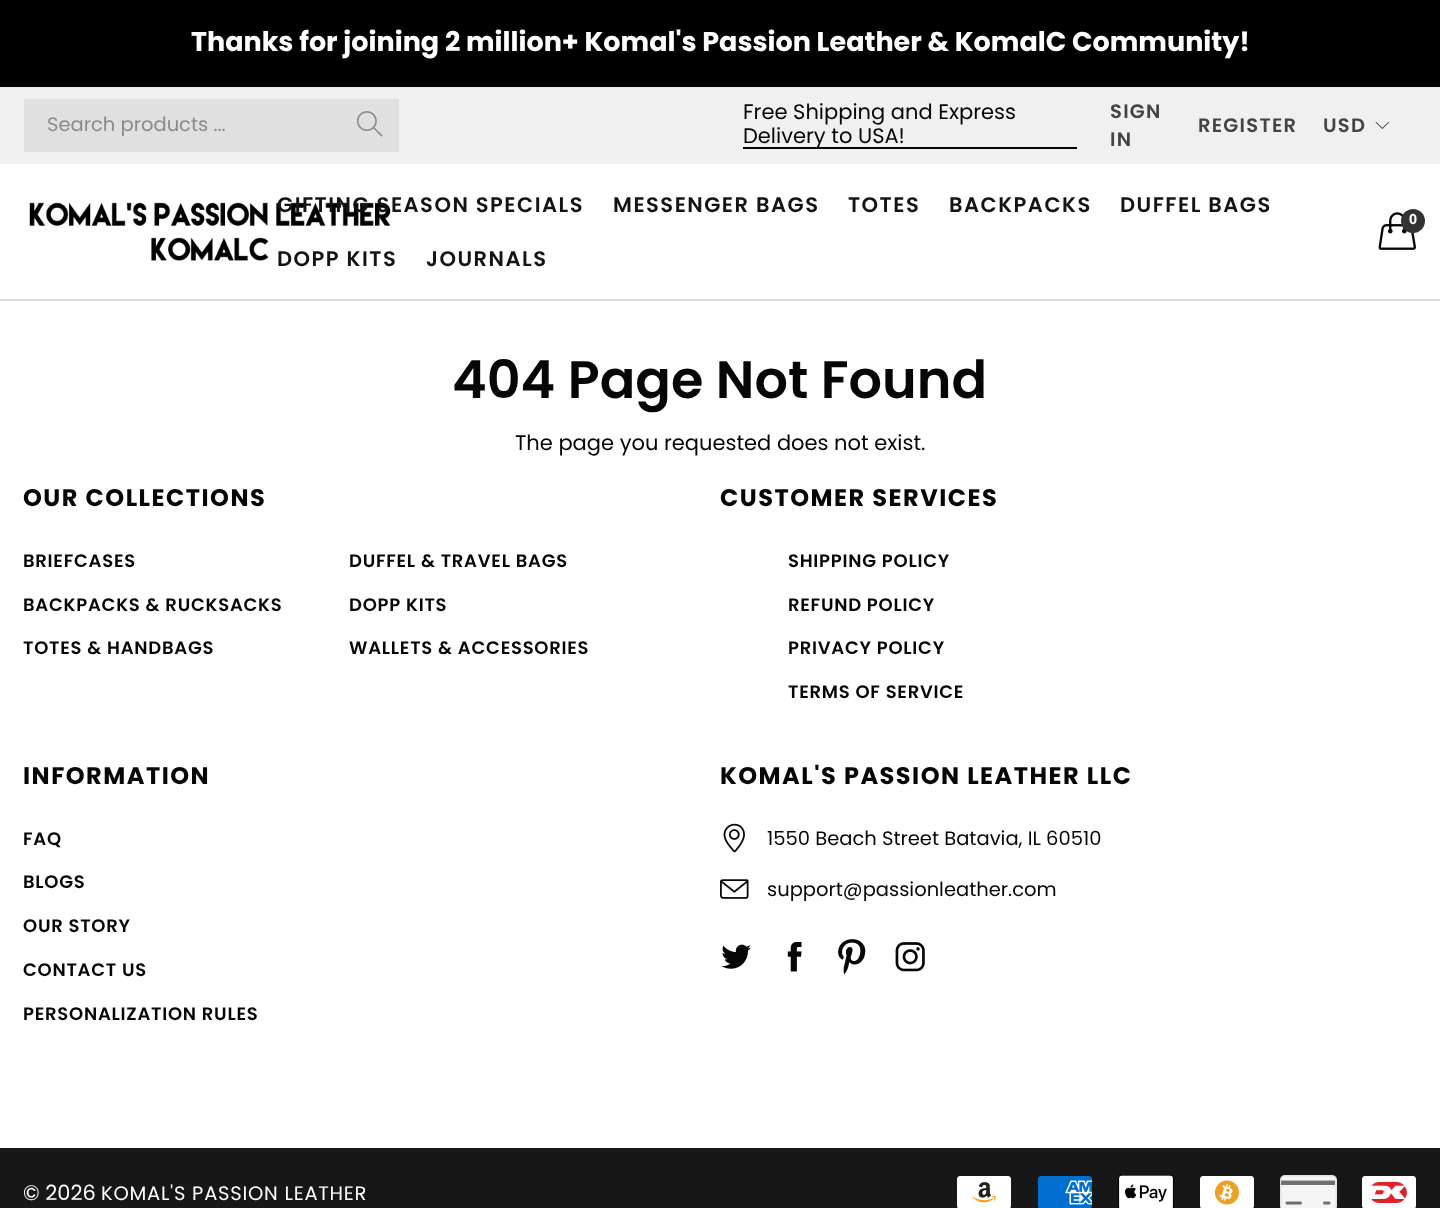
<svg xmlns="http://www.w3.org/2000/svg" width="1440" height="1208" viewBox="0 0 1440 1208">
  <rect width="100%" height="100%" fill="rgb(255,255,255)"/>
  <rect x="0" y="0" width="1440" height="87" fill="rgb(0,0,0)"/>
  <text x="191" y="51" font-family="Poppins" font-size="27" font-weight="bold" fill="rgb(255,255,255)">Thanks for joining 2 million+ Komal's Passion Leather &amp; KomalC Community!</text>
  <rect x="0" y="87" width="1440" height="77" fill="rgb(240,240,240)"/>
  <rect x="24" y="99" width="375" height="53" fill="rgb(224,224,224)"/>
  <text x="47" y="131" font-family="Poppins" font-size="19.5" fill="rgb(138,138,138)">Search products ...</text>
  <image x="356" y="111" width="27" height="26" href="pic1.png"/>
  <rect x="743" y="147" width="334" height="2" fill="rgb(6,6,6)"/>
  <g font-family="Poppins" font-size="21" fill="rgb(6,6,6)">
    <text>
      <tspan x="743" y="119">Free Shipping and Express</tspan>
      <tspan x="743" y="143">Delivery to USA!</tspan>
    </text>
  </g>
  <g font-family="Poppins" font-size="19.5" font-weight="600" letter-spacing="1.25" fill="rgb(68,68,68)">
    <text>
      <tspan x="1110" y="118">SIGN</tspan>
      <tspan x="1110" y="146">IN</tspan>
    </text>
    <text x="1198" y="132">REGISTER</text>
    <text x="1323" y="132">USD</text>
  </g>
  <image x="1375" y="121" width="14" height="8" href="pic2.png"/>
  <rect x="0" y="299" width="1440" height="2" fill="rgb(221,221,221)"/>
  <image x="29" y="202" width="362" height="59" href="pic3.png"/>
  <g font-family="Poppins" font-size="21" font-weight="600" letter-spacing="1.5" fill="rgb(20,20,20)">
    <text x="277" y="212">GIFTING SEASON SPECIALS</text>
    <text x="613" y="212">MESSENGER BAGS</text>
    <text x="848" y="212">TOTES</text>
    <text x="949" y="212">BACKPACKS</text>
    <text x="1120" y="212">DUFFEL BAGS</text>
    <text x="277" y="266">DOPP KITS</text>
    <text x="426" y="266">JOURNALS</text>
  </g>
  <image x="1378" y="212" width="38" height="38" href="pic4.png"/>
  <circle cx="1413" cy="221" r="12" fill="rgb(51,51,51)"/>
  <text x="1409" y="224" font-family="Open Sans" font-size="14" font-weight="bold" letter-spacing="1.25" fill="rgb(255,255,255)">0</text>
  <text x="452" y="398" font-family="Poppins" font-size="52.5" font-weight="600" fill="rgb(6,6,6)">404 Page Not Found</text>
  <text x="515" y="450" font-family="Poppins" font-size="21" fill="rgb(6,6,6)">The page you requested does not exist.</text>
  <text x="23" y="506" font-family="Poppins" font-size="24" font-weight="bold" letter-spacing="1.5" fill="rgb(6,6,6)">OUR COLLECTIONS</text>
  <g font-family="Poppins" font-size="18" font-weight="600" letter-spacing="0.75" fill="rgb(6,6,6)">
    <text x="23" y="567">BRIEFCASES</text>
    <text x="23" y="611">BACKPACKS &amp; RUCKSACKS</text>
    <text x="23" y="654">TOTES &amp; HANDBAGS</text>
    <text x="349" y="567">DUFFEL &amp; TRAVEL BAGS</text>
    <text x="349" y="611">DOPP KITS</text>
    <text x="349" y="654">WALLETS &amp; ACCESSORIES</text>
  </g>
  <text x="720" y="506" font-family="Poppins" font-size="24" font-weight="bold" letter-spacing="1.5" fill="rgb(6,6,6)">CUSTOMER SERVICES</text>
  <g font-family="Poppins" font-size="18" font-weight="600" letter-spacing="0.75" fill="rgb(6,6,6)">
    <text x="788" y="567">SHIPPING POLICY</text>
    <text x="788" y="611">REFUND POLICY</text>
    <text x="788" y="654">PRIVACY POLICY</text>
    <text x="788" y="698">TERMS OF SERVICE</text>
  </g>
  <text x="23" y="784" font-family="Poppins" font-size="24" font-weight="bold" letter-spacing="1.5" fill="rgb(6,6,6)">INFORMATION</text>
  <g font-family="Poppins" font-size="18" font-weight="600" letter-spacing="0.75" fill="rgb(6,6,6)">
    <text x="23" y="845">FAQ</text>
    <text x="23" y="888">BLOGS</text>
    <text x="23" y="932">OUR STORY</text>
    <text x="23" y="976">CONTACT US</text>
    <text x="23" y="1020">PERSONALIZATION RULES</text>
  </g>
  <text x="720" y="784" font-family="Poppins" font-size="24" font-weight="bold" letter-spacing="1.5" fill="rgb(6,6,6)">KOMAL'S PASSION LEATHER LLC</text>
  <image x="723" y="823" width="22" height="30" href="pic5.png"/>
  <text x="767" y="845" font-family="Poppins" font-size="19.5" fill="rgb(6,6,6)">1550 Beach Street Batavia, IL 60510</text>
  <image x="720" y="879" width="29" height="20" href="pic6.png"/>
  <text x="767" y="896" font-family="Poppins" font-size="19.5" fill="rgb(6,6,6)">support@passionleather.com</text>
  <image x="721" y="944" width="30" height="25" href="pic7.png"/>
  <image x="787" y="941" width="15" height="31" href="pic8.png"/>
  <image x="838" y="939" width="28" height="36" href="pic9.png"/>
  <image x="895" y="942" width="30" height="30" href="pic10.png"/>
  <rect x="0" y="1148" width="1440" height="60" fill="rgb(23,23,23)"/>
  <text x="23" y="1200" font-family="Poppins" font-size="21" fill="rgb(255,255,255)">© 2026</text>
  <text x="101" y="1200" font-family="Poppins" font-size="19.5" letter-spacing="0.75" fill="rgb(255,255,255)">KOMAL'S PASSION LEATHER</text>
  <image x="957" y="1176" width="54" height="32" href="pic11.png"/>
  <image x="1038" y="1176" width="54" height="32" href="pic12.png"/>
  <image x="1118" y="1175" width="56" height="33" href="pic13.png"/>
  <image x="1200" y="1176" width="54" height="32" href="pic14.png"/>
  <image x="1280" y="1175" width="57" height="33" href="pic15.png"/>
  <image x="1362" y="1176" width="54" height="32" href="pic16.png"/>
</svg>
